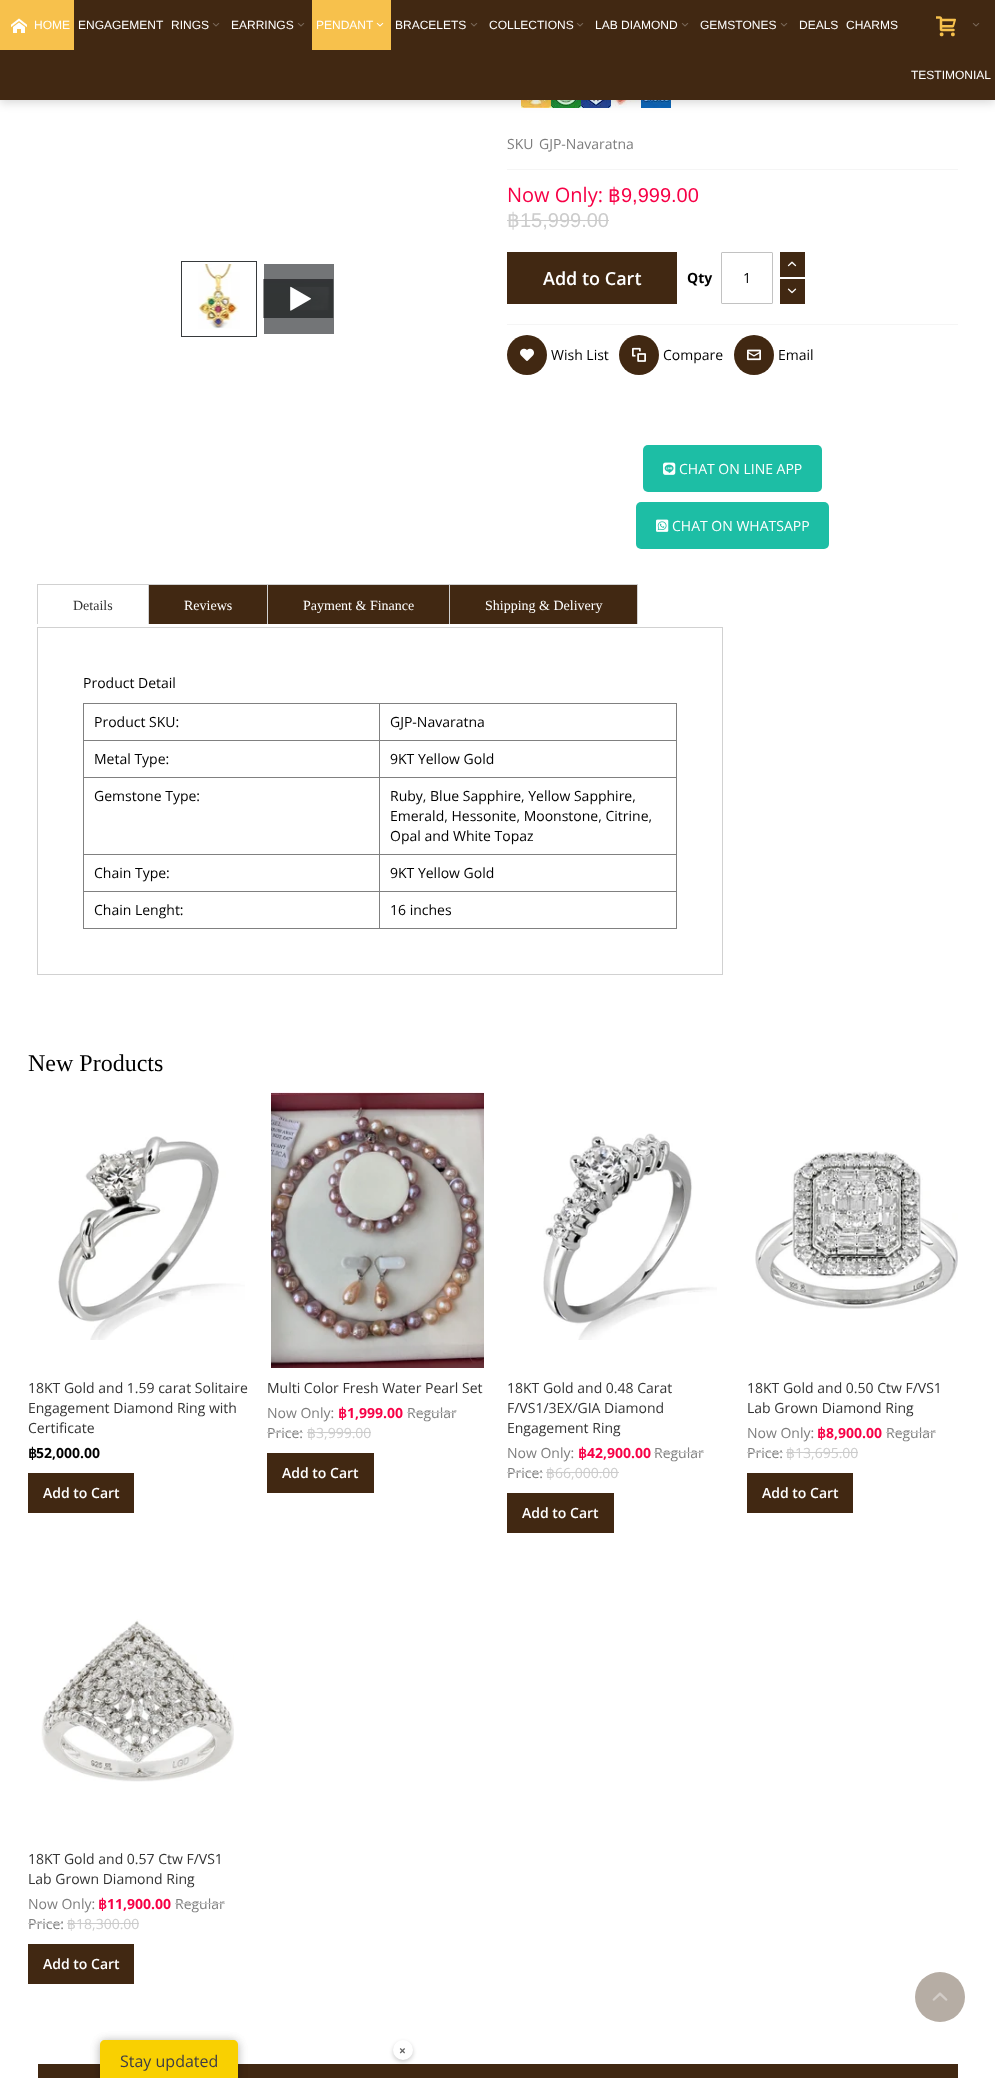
<svg xmlns="http://www.w3.org/2000/svg" width="995" height="2078" viewBox="0 0 995 2078">
  <rect width="100%" height="100%" fill="rgb(255,255,255)"/>
  <rect x="264" y="264" width="70" height="70" fill="rgb(115,117,119)"/>
  <image x="521" y="100" width="30" height="8" href="pic8.png"/>
  <image x="551" y="100" width="30" height="8" href="pic9.png"/>
  <image x="581" y="100" width="30" height="8" href="pic10.png"/>
  <image x="611" y="100" width="30" height="8" href="pic11.png"/>
  <image x="641" y="100" width="30" height="8" href="pic12.png"/>
  <rect x="0" y="3" width="995" height="100" fill="rgba(0,0,0,0.15)" filter="blur(5px)"/>
  <rect x="0" y="0" width="995" height="100" fill="rgb(65,40,18)"/>
  <image x="936" y="16" width="20" height="21" href="pic1.png"/>
  <image x="972" y="23" width="8" height="4" href="pic2.png"/>
  <rect x="0" y="0" width="74" height="50" fill="rgb(247,193,76)"/>
  <image x="11" y="18" width="16" height="15" href="pic3.png"/>
  <g font-family="Liberation Sans" font-size="12" fill="rgb(255,255,255)">
    <text x="34" y="29">HOME</text>
    <text x="78" y="29">ENGAGEMENT</text>
    <text x="171" y="29">RINGS</text>
  </g>
  <image x="212" y="23" width="8" height="4" href="pic2.png"/>
  <text x="231" y="29" font-family="Liberation Sans" font-size="12" fill="rgb(255,255,255)">EARRINGS</text>
  <image x="297" y="23" width="8" height="4" href="pic2.png"/>
  <rect x="312" y="0" width="79" height="50" fill="rgb(247,193,76)"/>
  <text x="316" y="29" font-family="Liberation Sans" font-size="12" fill="rgb(255,255,255)">PENDANT</text>
  <image x="376" y="22" width="8" height="5" href="pic4.png"/>
  <text x="395" y="29" font-family="Liberation Sans" font-size="12" fill="rgb(255,255,255)">BRACELETS</text>
  <image x="470" y="23" width="8" height="4" href="pic2.png"/>
  <text x="489" y="29" font-family="Liberation Sans" font-size="12" fill="rgb(255,255,255)">COLLECTIONS</text>
  <image x="576" y="23" width="8" height="4" href="pic2.png"/>
  <text x="595" y="29" font-family="Liberation Sans" font-size="12" fill="rgb(255,255,255)">LAB DIAMOND</text>
  <image x="681" y="23" width="8" height="4" href="pic2.png"/>
  <text x="700" y="29" font-family="Liberation Sans" font-size="12" fill="rgb(255,255,255)">GEMSTONES</text>
  <image x="780" y="23" width="8" height="4" href="pic2.png"/>
  <g font-family="Liberation Sans" font-size="12" fill="rgb(255,255,255)">
    <text x="799" y="29">DEALS</text>
    <text x="846" y="29">CHARMS</text>
    <text x="911" y="79">TESTIMONIAL</text>
  </g>
  <rect x="181.5" y="261.5" width="75" height="75" fill="none" stroke="rgb(55,58,60)"/>
  <image x="198" y="264" width="42" height="65" href="pic5.png"/>
  <image x="263" y="279" width="71" height="39" href="pic6.png"/>
  <image x="290" y="286" width="21" height="25" href="pic7.png"/>
  <rect x="507" y="169" width="451" height="1" fill="rgb(245,245,245)"/>
  <g font-family="Open Sans" font-size="14" fill="rgb(125,125,125)">
    <text x="507" y="149">SKU</text>
    <text x="539" y="149">GJP-Navaratna</text>
  </g>
  <text x="507" y="202" font-family="Open Sans" font-size="20" fill="rgb(247,0,70)">Now Only:</text>
  <text x="608" y="202" font-family="DejaVu Sans" font-size="20" fill="rgb(247,0,70)">฿</text>
  <text x="621" y="202" font-family="Liberation Sans" font-size="20" fill="rgb(247,0,70)">9,999.00</text>
  <text x="507" y="227" font-family="DejaVu Sans" font-size="20" fill="rgb(204,204,204)">฿</text>
  <rect x="507" y="220" width="102" height="1" fill="rgb(204,204,204)"/>
  <text x="520" y="227" font-family="Liberation Sans" font-size="20" fill="rgb(204,204,204)">15,999.00</text>
  <rect x="507" y="324" width="451" height="1" fill="rgb(245,245,245)"/>
  <rect x="507" y="252" width="170" height="52" fill="rgb(65,40,18)"/>
  <text x="543" y="285" font-family="Open Sans" font-size="18" font-weight="600" fill="rgb(255,255,255)">Add to Cart</text>
  <text x="687" y="283" font-family="Open Sans" font-size="14" font-weight="bold" fill="rgb(0,0,0)">Qty</text>
  <rect x="721.5" y="252.5" width="51" height="51" rx="0.5" fill="none" stroke="rgb(194,194,194)"/>
  <text x="743" y="283" font-family="Open Sans" font-size="14" fill="rgb(0,0,0)">1</text>
  <rect x="780" y="252" width="25" height="25" fill="rgb(65,40,18)"/>
  <image x="787" y="261" width="10" height="6" href="pic13.png"/>
  <rect x="780" y="279" width="25" height="25" fill="rgb(65,40,18)"/>
  <image x="787" y="288" width="10" height="6" href="pic14.png"/>
  <circle cx="527" cy="355" r="20" fill="rgb(65,40,18)"/>
  <image x="520" y="348" width="14" height="13" href="pic15.png"/>
  <text x="551" y="360" font-family="Open Sans" font-size="14" fill="rgb(0,0,0)">Wish List</text>
  <circle cx="639" cy="355" r="20" fill="rgb(65,40,18)"/>
  <image x="632" y="347" width="14" height="15" href="pic16.png"/>
  <text x="663" y="360" font-family="Open Sans" font-size="14" fill="rgb(0,0,0)">Compare</text>
  <circle cx="754" cy="355" r="20" fill="rgb(65,40,18)"/>
  <image x="747" y="349" width="14" height="12" href="pic17.png"/>
  <text x="778" y="360" font-family="Open Sans" font-size="14" fill="rgb(0,0,0)">Email</text>
  <rect x="643" y="445" width="179" height="47" rx="5" fill="rgb(29,190,165)"/>
  <image x="663" y="462" width="13" height="13" href="pic18.png"/>
  <text x="679" y="474" font-family="Open Sans" font-size="14" fill="rgb(255,255,255)">CHAT ON LINE APP</text>
  <rect x="636" y="502" width="193" height="47" rx="5" fill="rgb(29,190,165)"/>
  <image x="656" y="519" width="13" height="13" href="pic19.png"/>
  <text x="672" y="531" font-family="Open Sans" font-size="14" fill="rgb(255,255,255)">CHAT ON WHATSAPP</text>
  <rect x="37" y="584" width="601" height="1" fill="rgb(209,209,209)"/>
  <rect x="37" y="584" width="1" height="40" fill="rgb(209,209,209)"/>
  <text x="73" y="610" font-family="Liberation Serif" font-size="14" fill="rgb(51,51,51)">Details</text>
  <rect x="149" y="585" width="118" height="39" fill="rgb(65,40,18)"/>
  <rect x="148" y="584" width="1" height="40" fill="rgb(209,209,209)"/>
  <text x="184" y="610" font-family="Liberation Serif" font-size="14" fill="rgb(255,255,255)">Reviews</text>
  <rect x="268" y="585" width="181" height="39" fill="rgb(65,40,18)"/>
  <rect x="267" y="584" width="1" height="40" fill="rgb(209,209,209)"/>
  <text x="303" y="610" font-family="Liberation Serif" font-size="14" fill="rgb(255,255,255)">Payment &amp; Finance</text>
  <rect x="450" y="585" width="187" height="39" fill="rgb(65,40,18)"/>
  <rect x="637" y="584" width="1" height="40" fill="rgb(209,209,209)"/>
  <rect x="449" y="584" width="1" height="40" fill="rgb(209,209,209)"/>
  <text x="485" y="610" font-family="Liberation Serif" font-size="14" fill="rgb(255,255,255)">Shipping &amp; Delivery</text>
  <rect x="37.5" y="627.5" width="685" height="347" fill="none" stroke="rgb(209,209,209)"/>
  <text x="83" y="688" font-family="Open Sans" font-size="14" fill="rgb(0,0,0)">Product Detail</text>
  <rect x="83" y="703" width="594" height="1" fill="rgb(128,128,128)"/>
  <rect x="676" y="703" width="1" height="226" fill="rgb(128,128,128)"/>
  <rect x="83" y="928" width="594" height="1" fill="rgb(128,128,128)"/>
  <rect x="83" y="703" width="1" height="226" fill="rgb(128,128,128)"/>
  <text x="94" y="727" font-family="Open Sans" font-size="14" fill="rgb(0,0,0)">Product SKU:</text>
  <rect x="379" y="740" width="298" height="1" fill="rgb(128,128,128)"/>
  <rect x="379" y="777" width="298" height="1" fill="rgb(128,128,128)"/>
  <rect x="379" y="854" width="298" height="1" fill="rgb(128,128,128)"/>
  <rect x="379" y="891" width="298" height="1" fill="rgb(128,128,128)"/>
  <rect x="379" y="891" width="1" height="38" fill="rgb(128,128,128)"/>
  <rect x="83" y="891" width="297" height="1" fill="rgb(128,128,128)"/>
  <rect x="379" y="854" width="1" height="38" fill="rgb(128,128,128)"/>
  <rect x="83" y="854" width="297" height="1" fill="rgb(128,128,128)"/>
  <rect x="379" y="777" width="1" height="78" fill="rgb(128,128,128)"/>
  <rect x="83" y="777" width="297" height="1" fill="rgb(128,128,128)"/>
  <rect x="379" y="740" width="1" height="38" fill="rgb(128,128,128)"/>
  <rect x="83" y="740" width="297" height="1" fill="rgb(128,128,128)"/>
  <rect x="379" y="703" width="1" height="38" fill="rgb(128,128,128)"/>
  <g font-family="Open Sans" font-size="14" fill="rgb(0,0,0)">
    <text x="390" y="727">GJP-Navaratna</text>
    <text x="94" y="764">Metal Type:</text>
    <text x="390" y="764">9KT Yellow Gold</text>
    <text x="94" y="801">Gemstone Type:</text>
    <text>
      <tspan x="390" y="801">Ruby, Blue Sapphire, Yellow Sapphire,</tspan>
      <tspan x="390" y="821">Emerald, Hessonite, Moonstone, Citrine,</tspan>
      <tspan x="390" y="841">Opal and White Topaz</tspan>
    </text>
    <text x="94" y="878">Chain Type:</text>
    <text x="390" y="878">9KT Yellow Gold</text>
    <text x="94" y="915">Chain Lenght:</text>
    <text x="390" y="915">16 inches</text>
  </g>
  <text x="28" y="1071" font-family="Liberation Serif" font-size="24" fill="rgb(0,0,0)">New Products</text>
  <image x="58" y="1136" width="187" height="204" href="pic20.png"/>
  <g font-family="Open Sans" font-size="14" fill="rgb(51,51,51)">
    <text>
      <tspan x="28" y="1393">18KT Gold and 1.59 carat Solitaire</tspan>
      <tspan x="28" y="1413">Engagement Diamond Ring with</tspan>
      <tspan x="28" y="1433">Certificate</tspan>
    </text>
  </g>
  <text x="28" y="1458" font-family="DejaVu Sans" font-size="14" font-weight="bold" fill="rgb(0,0,0)">฿</text>
  <text x="36" y="1458" font-family="Open Sans" font-size="14" font-weight="bold" fill="rgb(0,0,0)">52,000.00</text>
  <rect x="28" y="1473" width="106" height="40" fill="rgb(65,40,18)"/>
  <text x="43" y="1498" font-family="Open Sans" font-size="14" font-weight="600" fill="rgb(255,255,255)">Add to Cart</text>
  <image x="271" y="1092" width="213" height="276" href="pic21.png"/>
  <text x="267" y="1393" font-family="Open Sans" font-size="14" fill="rgb(51,51,51)">Multi Color Fresh Water Pearl Set</text>
  <text x="267" y="1418" font-family="Open Sans" font-size="14" fill="rgb(125,125,125)">Now Only:</text>
  <text x="338" y="1418" font-family="DejaVu Sans" font-size="14" font-weight="bold" fill="rgb(247,0,70)">฿</text>
  <text x="347" y="1418" font-family="Open Sans" font-size="14" font-weight="bold" fill="rgb(247,0,70)">1,999.00</text>
  <text x="407" y="1418" font-family="Open Sans" font-size="14" fill="rgb(125,125,125)">Regular</text>
  <rect x="407" y="1412" width="49" height="1" fill="rgb(204,204,204)"/>
  <text x="267" y="1438" font-family="Open Sans" font-size="14" fill="rgb(125,125,125)">Price:</text>
  <rect x="267" y="1432" width="36" height="1" fill="rgb(204,204,204)"/>
  <text x="307" y="1438" font-family="DejaVu Sans" font-size="14" fill="rgb(204,204,204)">฿</text>
  <rect x="307" y="1432" width="64" height="1" fill="rgb(204,204,204)"/>
  <text x="316" y="1438" font-family="Open Sans" font-size="14" fill="rgb(204,204,204)">3,999.00</text>
  <rect x="267" y="1453" width="107" height="40" fill="rgb(65,40,18)"/>
  <text x="282" y="1478" font-family="Open Sans" font-size="14" font-weight="600" fill="rgb(255,255,255)">Add to Cart</text>
  <image x="543" y="1133" width="174" height="207" href="pic22.png"/>
  <g font-family="Open Sans" font-size="14" fill="rgb(51,51,51)">
    <text>
      <tspan x="507" y="1393">18KT Gold and 0.48 Carat</tspan>
      <tspan x="507" y="1413">F/VS1/3EX/GIA Diamond</tspan>
      <tspan x="507" y="1433">Engagement Ring</tspan>
    </text>
  </g>
  <text x="507" y="1458" font-family="Open Sans" font-size="14" fill="rgb(125,125,125)">Now Only:</text>
  <text x="578" y="1458" font-family="DejaVu Sans" font-size="14" font-weight="bold" fill="rgb(247,0,70)">฿</text>
  <text x="587" y="1458" font-family="Open Sans" font-size="14" font-weight="bold" fill="rgb(247,0,70)">42,900.00</text>
  <text x="654" y="1458" font-family="Open Sans" font-size="14" fill="rgb(125,125,125)">Regular</text>
  <rect x="654" y="1452" width="50" height="1" fill="rgb(204,204,204)"/>
  <text x="507" y="1478" font-family="Open Sans" font-size="14" fill="rgb(125,125,125)">Price:</text>
  <rect x="507" y="1472" width="36" height="1" fill="rgb(204,204,204)"/>
  <text x="546" y="1478" font-family="DejaVu Sans" font-size="14" fill="rgb(204,204,204)">฿</text>
  <rect x="546" y="1472" width="73" height="1" fill="rgb(204,204,204)"/>
  <text x="555" y="1478" font-family="Open Sans" font-size="14" fill="rgb(204,204,204)">66,000.00</text>
  <rect x="507" y="1493" width="107" height="40" fill="rgb(65,40,18)"/>
  <text x="522" y="1518" font-family="Open Sans" font-size="14" font-weight="600" fill="rgb(255,255,255)">Add to Cart</text>
  <image x="755" y="1151" width="203" height="158" href="pic23.png"/>
  <g font-family="Open Sans" font-size="14" fill="rgb(51,51,51)">
    <text>
      <tspan x="747" y="1393">18KT Gold and 0.50 Ctw F/VS1</tspan>
      <tspan x="747" y="1413">Lab Grown Diamond Ring</tspan>
    </text>
  </g>
  <text x="747" y="1438" font-family="Open Sans" font-size="14" fill="rgb(125,125,125)">Now Only:</text>
  <text x="817" y="1438" font-family="DejaVu Sans" font-size="14" font-weight="bold" fill="rgb(247,0,70)">฿</text>
  <text x="826" y="1438" font-family="Open Sans" font-size="14" font-weight="bold" fill="rgb(247,0,70)">8,900.00</text>
  <text x="886" y="1438" font-family="Open Sans" font-size="14" fill="rgb(125,125,125)">Regular</text>
  <rect x="886" y="1432" width="50" height="1" fill="rgb(204,204,204)"/>
  <text x="747" y="1458" font-family="Open Sans" font-size="14" fill="rgb(125,125,125)">Price:</text>
  <rect x="747" y="1452" width="36" height="1" fill="rgb(204,204,204)"/>
  <text x="786" y="1458" font-family="DejaVu Sans" font-size="14" fill="rgb(204,204,204)">฿</text>
  <rect x="786" y="1452" width="72" height="1" fill="rgb(204,204,204)"/>
  <text x="795" y="1458" font-family="Open Sans" font-size="14" fill="rgb(204,204,204)">13,695.00</text>
  <rect x="747" y="1473" width="106" height="40" fill="rgb(65,40,18)"/>
  <text x="762" y="1498" font-family="Open Sans" font-size="14" font-weight="600" fill="rgb(255,255,255)">Add to Cart</text>
  <image x="41" y="1619" width="193" height="163" href="pic24.png"/>
  <g font-family="Open Sans" font-size="14" fill="rgb(51,51,51)">
    <text>
      <tspan x="28" y="1864">18KT Gold and 0.57 Ctw F/VS1</tspan>
      <tspan x="28" y="1884">Lab Grown Diamond Ring</tspan>
    </text>
  </g>
  <text x="28" y="1909" font-family="Open Sans" font-size="14" fill="rgb(125,125,125)">Now Only:</text>
  <text x="98" y="1909" font-family="DejaVu Sans" font-size="14" font-weight="bold" fill="rgb(247,0,70)">฿</text>
  <text x="107" y="1909" font-family="Open Sans" font-size="14" font-weight="bold" fill="rgb(247,0,70)">11,900.00</text>
  <text x="175" y="1909" font-family="Open Sans" font-size="14" fill="rgb(125,125,125)">Regular</text>
  <rect x="175" y="1903" width="50" height="1" fill="rgb(204,204,204)"/>
  <text x="28" y="1929" font-family="Open Sans" font-size="14" fill="rgb(125,125,125)">Price:</text>
  <rect x="28" y="1923" width="35" height="1" fill="rgb(204,204,204)"/>
  <text x="67" y="1929" font-family="DejaVu Sans" font-size="14" fill="rgb(204,204,204)">฿</text>
  <rect x="67" y="1923" width="72" height="1" fill="rgb(204,204,204)"/>
  <text x="76" y="1929" font-family="Open Sans" font-size="14" fill="rgb(204,204,204)">18,300.00</text>
  <rect x="28" y="1944" width="106" height="40" fill="rgb(65,40,18)"/>
  <text x="43" y="1969" font-family="Open Sans" font-size="14" font-weight="600" fill="rgb(255,255,255)">Add to Cart</text>
  <rect x="38" y="2064" width="920" height="14" fill="rgb(65,40,18)"/>
  <circle cx="940" cy="1997" r="25" fill="rgb(182,173,164)"/>
  <image x="932" y="1992" width="16" height="9" href="pic25.png"/>
  <rect x="100" y="2041" width="138" height="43" rx="5" fill="rgba(0,0,0,0.16)" filter="blur(5px)"/>
  <rect x="100" y="2041" width="138" height="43" rx="5" fill="rgba(0,0,0,0.16)" filter="blur(5px)"/>
  <path d="M105 2040H233C236 2040 238 2042 238 2045V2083H100V2045C100 2042 102 2040 105 2040Z" fill="rgb(249,208,1)"/>
  <rect x="393" y="2042" width="20" height="20" rx="10" fill="rgba(0,0,0,0.2)" filter="blur(2px)"/>
  <circle cx="403" cy="2050" r="10" fill="rgb(255,255,255)"/>
  <text x="399" y="2055" font-family="Open Sans" font-size="12" font-weight="bold" fill="rgb(102,102,102)">×</text>
  <text x="120" y="2067" font-family="Open Sans" font-size="16" fill="rgb(61,60,70)">Stay updated</text>
</svg>
